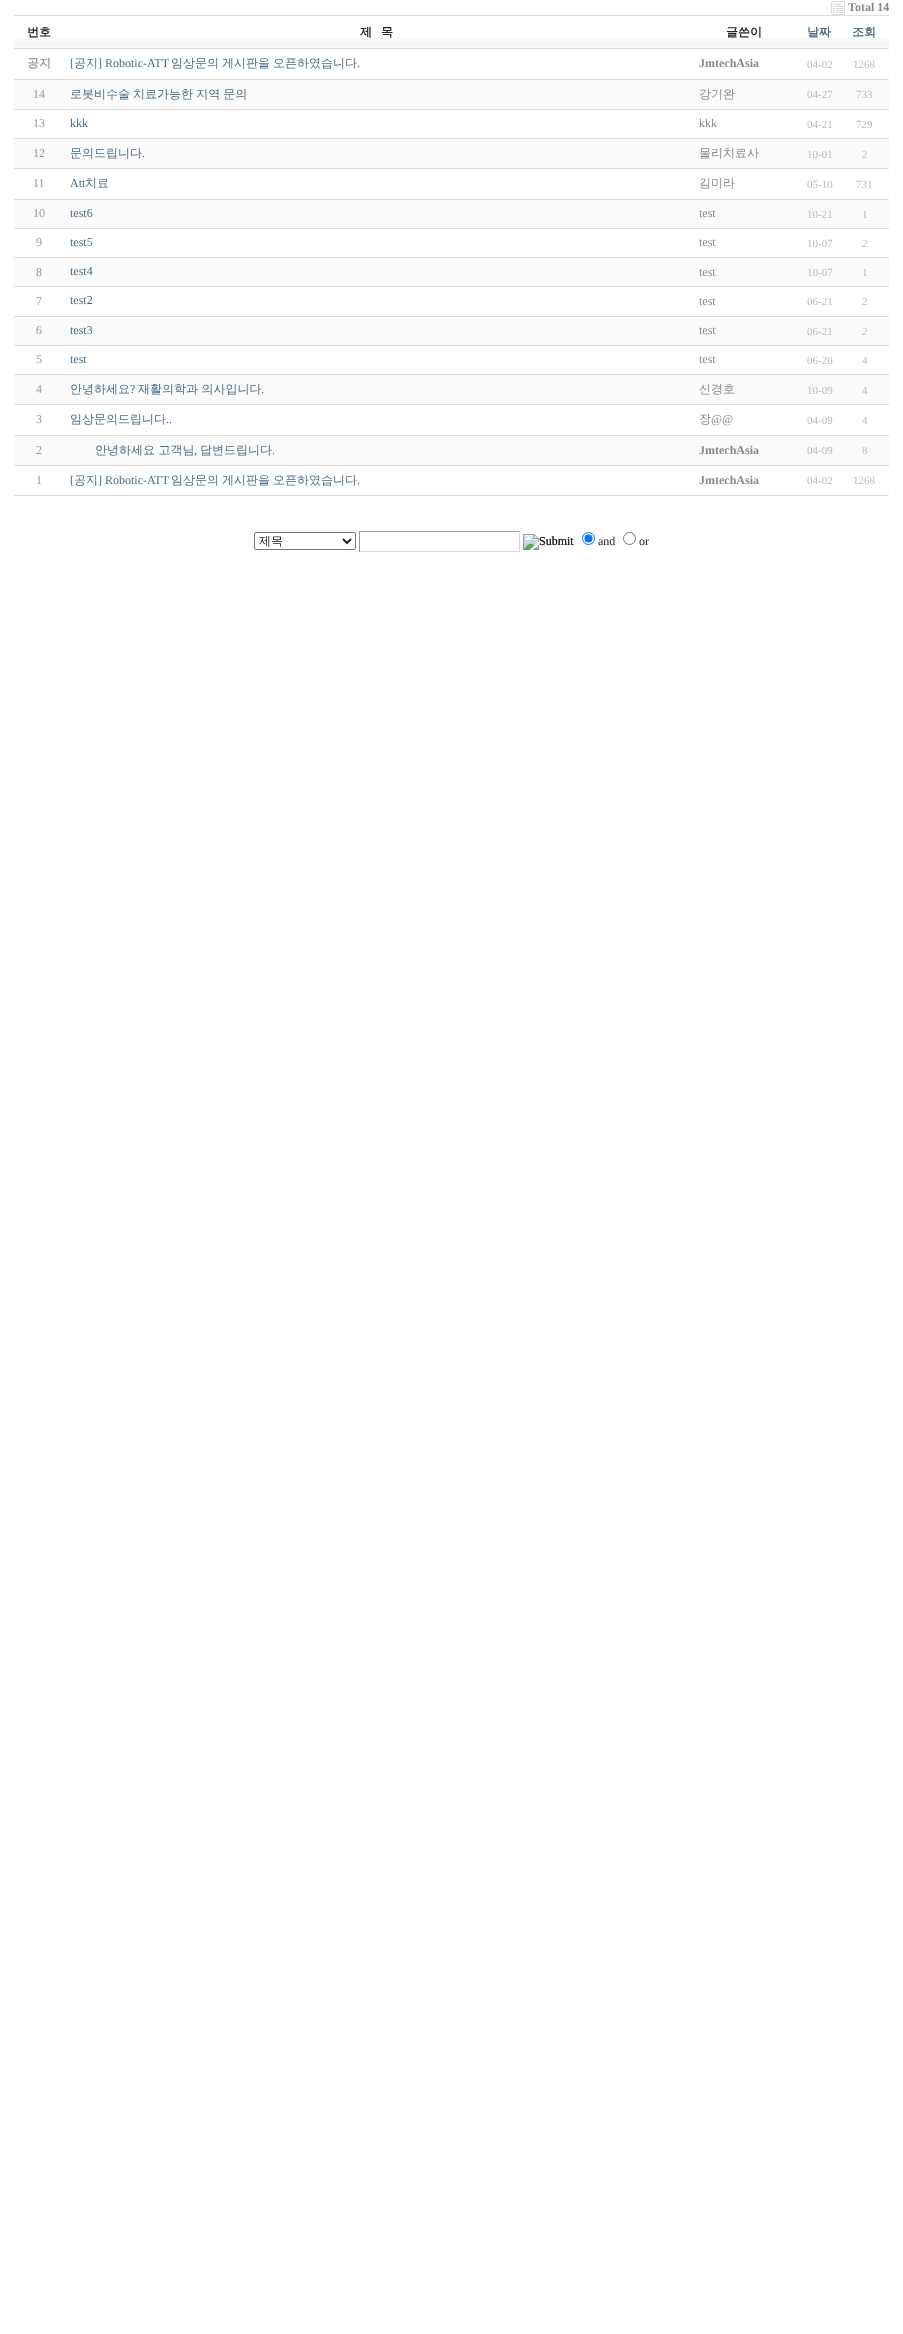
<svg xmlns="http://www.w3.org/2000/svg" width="903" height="2334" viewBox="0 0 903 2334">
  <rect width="100%" height="100%" fill="rgb(255,255,255)"/>
  <image x="831" y="1" width="14" height="14" href="pic1.png"/>
  <text x="848" y="11" font-family="Liberation Serif" font-size="12" font-weight="bold" fill="rgb(136,136,136)">Total 14</text>
  <image x="14" y="37" width="50" height="11" href="pic2.png"/>
  <rect x="14" y="15" width="875" height="1" fill="rgb(221,221,221)"/>
  <rect x="14" y="48" width="875" height="1" fill="rgb(221,221,221)"/>
  <text x="27" y="36" font-family="WenQuanYi Zen Hei" font-size="12" font-weight="bold" fill="rgb(34,34,34)">번호</text>
  <image x="64" y="37" width="625" height="11" href="pic3.png"/>
  <g font-family="WenQuanYi Zen Hei" font-size="12" font-weight="bold" fill="rgb(34,34,34)">
    <text x="360" y="36">제</text>
    <text x="381" y="36">목</text>
  </g>
  <image x="689" y="37" width="110" height="11" href="pic4.png"/>
  <text x="726" y="36" font-family="WenQuanYi Zen Hei" font-size="12" font-weight="bold" fill="rgb(34,34,34)">글쓴이</text>
  <image x="799" y="37" width="40" height="11" href="pic5.png"/>
  <text x="807" y="36" font-family="WenQuanYi Zen Hei" font-size="12" font-weight="bold" fill="rgb(70,108,138)">날짜</text>
  <image x="839" y="37" width="50" height="11" href="pic2.png"/>
  <text x="852" y="36" font-family="WenQuanYi Zen Hei" font-size="12" font-weight="bold" fill="rgb(70,108,138)">조회</text>
  <rect x="14" y="79" width="50" height="1" fill="rgb(221,221,221)"/>
  <text x="27" y="67" font-family="WenQuanYi Zen Hei" font-size="12" font-weight="bold" fill="rgb(153,153,153)">공지</text>
  <text x="70" y="67" font-family="Liberation Serif" font-size="12" fill="rgb(70,108,138)">[</text>
  <text x="74" y="67" font-family="WenQuanYi Zen Hei" font-size="12" font-weight="500" fill="rgb(70,108,138)">공지</text>
  <text x="98" y="67" font-family="Liberation Serif" font-size="12" fill="rgb(70,108,138)">] Robotic-ATT</text>
  <g font-family="WenQuanYi Zen Hei" font-size="12" font-weight="500" fill="rgb(70,108,138)">
    <text x="171" y="67">임상문의</text>
    <text x="222" y="67">게시판을</text>
    <text x="273" y="67">오픈하였습니다</text>
  </g>
  <text x="357" y="67" font-family="Liberation Serif" font-size="12" fill="rgb(70,108,138)">.</text>
  <rect x="64" y="79" width="825" height="1" fill="rgb(221,221,221)"/>
  <text x="699" y="67" font-family="Liberation Serif" font-size="12" font-weight="bold" fill="rgb(136,136,136)">JmtechAsia</text>
  <g font-family="Liberation Serif" font-size="11" fill="rgb(186,186,186)">
    <text x="807" y="68">04-02</text>
    <text x="853" y="68">1268</text>
  </g>
  <rect x="14" y="80" width="875" height="29" fill="rgb(250,250,250)"/>
  <rect x="14" y="109" width="50" height="1" fill="rgb(221,221,221)"/>
  <text x="33" y="98" font-family="Liberation Serif" font-size="12" fill="rgb(153,153,153)">14</text>
  <text x="70" y="98" word-spacing="-0.5" font-family="WenQuanYi Zen Hei" font-size="12" font-weight="500" fill="rgb(70,108,138)">로봇비수술 치료가능한 지역 문의</text>
  <rect x="64" y="109" width="825" height="1" fill="rgb(221,221,221)"/>
  <text x="699" y="98" font-family="WenQuanYi Zen Hei" font-size="12" font-weight="500" fill="rgb(136,136,136)">강기완</text>
  <g font-family="Liberation Serif" font-size="11" fill="rgb(186,186,186)">
    <text x="807" y="98">04-27</text>
    <text x="856" y="98">733</text>
  </g>
  <rect x="14" y="138" width="50" height="1" fill="rgb(221,221,221)"/>
  <text x="33" y="127" font-family="Liberation Serif" font-size="12" fill="rgb(153,153,153)">13</text>
  <text x="70" y="127" font-family="Liberation Serif" font-size="12" fill="rgb(70,108,138)">kkk</text>
  <rect x="64" y="138" width="825" height="1" fill="rgb(221,221,221)"/>
  <text x="699" y="127" font-family="Liberation Serif" font-size="12" fill="rgb(136,136,136)">kkk</text>
  <g font-family="Liberation Serif" font-size="11" fill="rgb(186,186,186)">
    <text x="807" y="128">04-21</text>
    <text x="856" y="128">729</text>
  </g>
  <rect x="14" y="139" width="875" height="29" fill="rgb(250,250,250)"/>
  <rect x="14" y="168" width="50" height="1" fill="rgb(221,221,221)"/>
  <text x="33" y="157" font-family="Liberation Serif" font-size="12" fill="rgb(153,153,153)">12</text>
  <text x="70" y="157" font-family="WenQuanYi Zen Hei" font-size="12" font-weight="500" fill="rgb(70,108,138)">문의드립니다</text>
  <text x="142" y="157" font-family="Liberation Serif" font-size="12" fill="rgb(70,108,138)">.</text>
  <rect x="64" y="168" width="825" height="1" fill="rgb(221,221,221)"/>
  <text x="699" y="157" font-family="WenQuanYi Zen Hei" font-size="12" font-weight="500" fill="rgb(136,136,136)">물리치료사</text>
  <g font-family="Liberation Serif" font-size="11" fill="rgb(186,186,186)">
    <text x="807" y="158">10-01</text>
    <text x="862" y="158">2</text>
  </g>
  <rect x="14" y="199" width="50" height="1" fill="rgb(221,221,221)"/>
  <text x="33" y="187" font-family="Liberation Serif" font-size="12" fill="rgb(153,153,153)">11</text>
  <text x="70" y="187" font-family="Liberation Serif" font-size="12" fill="rgb(70,108,138)">Att</text>
  <text x="85" y="187" font-family="WenQuanYi Zen Hei" font-size="12" font-weight="500" fill="rgb(70,108,138)">치료</text>
  <rect x="64" y="199" width="825" height="1" fill="rgb(221,221,221)"/>
  <text x="699" y="187" font-family="WenQuanYi Zen Hei" font-size="12" font-weight="500" fill="rgb(136,136,136)">김미라</text>
  <g font-family="Liberation Serif" font-size="11" fill="rgb(186,186,186)">
    <text x="807" y="188">05-10</text>
    <text x="856" y="188">731</text>
  </g>
  <rect x="14" y="200" width="875" height="28" fill="rgb(250,250,250)"/>
  <rect x="14" y="228" width="50" height="1" fill="rgb(221,221,221)"/>
  <text x="33" y="217" font-family="Liberation Serif" font-size="12" fill="rgb(153,153,153)">10</text>
  <text x="70" y="217" font-family="Liberation Serif" font-size="12" fill="rgb(70,108,138)">test6</text>
  <rect x="64" y="228" width="825" height="1" fill="rgb(221,221,221)"/>
  <text x="699" y="217" font-family="Liberation Serif" font-size="12" fill="rgb(136,136,136)">test</text>
  <g font-family="Liberation Serif" font-size="11" fill="rgb(186,186,186)">
    <text x="807" y="218">10-21</text>
    <text x="862" y="218">1</text>
  </g>
  <rect x="14" y="257" width="50" height="1" fill="rgb(221,221,221)"/>
  <text x="36" y="246" font-family="Liberation Serif" font-size="12" fill="rgb(153,153,153)">9</text>
  <text x="70" y="246" font-family="Liberation Serif" font-size="12" fill="rgb(70,108,138)">test5</text>
  <rect x="64" y="257" width="825" height="1" fill="rgb(221,221,221)"/>
  <text x="699" y="246" font-family="Liberation Serif" font-size="12" fill="rgb(136,136,136)">test</text>
  <g font-family="Liberation Serif" font-size="11" fill="rgb(186,186,186)">
    <text x="807" y="247">10-07</text>
    <text x="862" y="247">2</text>
  </g>
  <rect x="14" y="258" width="875" height="28" fill="rgb(250,250,250)"/>
  <rect x="14" y="286" width="50" height="1" fill="rgb(221,221,221)"/>
  <text x="36" y="276" font-family="Liberation Serif" font-size="12" fill="rgb(153,153,153)">8</text>
  <text x="70" y="275" font-family="Liberation Serif" font-size="12" fill="rgb(70,108,138)">test4</text>
  <rect x="64" y="286" width="825" height="1" fill="rgb(221,221,221)"/>
  <text x="699" y="276" font-family="Liberation Serif" font-size="12" fill="rgb(136,136,136)">test</text>
  <g font-family="Liberation Serif" font-size="11" fill="rgb(186,186,186)">
    <text x="807" y="276">10-07</text>
    <text x="862" y="276">1</text>
  </g>
  <rect x="14" y="316" width="50" height="1" fill="rgb(221,221,221)"/>
  <text x="36" y="305" font-family="Liberation Serif" font-size="12" fill="rgb(153,153,153)">7</text>
  <text x="70" y="304" font-family="Liberation Serif" font-size="12" fill="rgb(70,108,138)">test2</text>
  <rect x="64" y="316" width="825" height="1" fill="rgb(221,221,221)"/>
  <text x="699" y="305" font-family="Liberation Serif" font-size="12" fill="rgb(136,136,136)">test</text>
  <g font-family="Liberation Serif" font-size="11" fill="rgb(186,186,186)">
    <text x="807" y="305">06-21</text>
    <text x="862" y="305">2</text>
  </g>
  <rect x="14" y="317" width="875" height="28" fill="rgb(250,250,250)"/>
  <rect x="14" y="345" width="50" height="1" fill="rgb(221,221,221)"/>
  <text x="36" y="334" font-family="Liberation Serif" font-size="12" fill="rgb(153,153,153)">6</text>
  <text x="70" y="334" font-family="Liberation Serif" font-size="12" fill="rgb(70,108,138)">test3</text>
  <rect x="64" y="345" width="825" height="1" fill="rgb(221,221,221)"/>
  <text x="699" y="334" font-family="Liberation Serif" font-size="12" fill="rgb(136,136,136)">test</text>
  <g font-family="Liberation Serif" font-size="11" fill="rgb(186,186,186)">
    <text x="807" y="335">06-21</text>
    <text x="862" y="335">2</text>
  </g>
  <rect x="14" y="374" width="50" height="1" fill="rgb(221,221,221)"/>
  <text x="36" y="363" font-family="Liberation Serif" font-size="12" fill="rgb(153,153,153)">5</text>
  <text x="70" y="363" font-family="Liberation Serif" font-size="12" fill="rgb(70,108,138)">test</text>
  <rect x="64" y="374" width="825" height="1" fill="rgb(221,221,221)"/>
  <text x="699" y="363" font-family="Liberation Serif" font-size="12" fill="rgb(136,136,136)">test</text>
  <g font-family="Liberation Serif" font-size="11" fill="rgb(186,186,186)">
    <text x="807" y="364">06-20</text>
    <text x="862" y="364">4</text>
  </g>
  <rect x="14" y="375" width="875" height="29" fill="rgb(250,250,250)"/>
  <rect x="14" y="404" width="50" height="1" fill="rgb(221,221,221)"/>
  <text x="36" y="393" font-family="Liberation Serif" font-size="12" fill="rgb(153,153,153)">4</text>
  <text x="70" y="393" font-family="WenQuanYi Zen Hei" font-size="12" font-weight="500" fill="rgb(70,108,138)">안녕하세요</text>
  <text x="130" y="393" font-family="Liberation Serif" font-size="12" fill="rgb(70,108,138)">?</text>
  <text x="138" y="393" font-family="WenQuanYi Zen Hei" font-size="12" font-weight="500" fill="rgb(70,108,138)">재활의학과 의사입니다</text>
  <text x="261" y="393" font-family="Liberation Serif" font-size="12" fill="rgb(70,108,138)">.</text>
  <rect x="64" y="404" width="825" height="1" fill="rgb(221,221,221)"/>
  <text x="699" y="393" font-family="WenQuanYi Zen Hei" font-size="12" font-weight="500" fill="rgb(136,136,136)">신경호</text>
  <g font-family="Liberation Serif" font-size="11" fill="rgb(186,186,186)">
    <text x="807" y="394">10-09</text>
    <text x="862" y="394">4</text>
  </g>
  <rect x="14" y="435" width="50" height="1" fill="rgb(221,221,221)"/>
  <text x="36" y="423" font-family="Liberation Serif" font-size="12" fill="rgb(153,153,153)">3</text>
  <text x="70" y="423" font-family="WenQuanYi Zen Hei" font-size="12" font-weight="500" fill="rgb(70,108,138)">임상문의드립니다</text>
  <text x="166" y="423" font-family="Liberation Serif" font-size="12" fill="rgb(70,108,138)">..</text>
  <rect x="64" y="435" width="825" height="1" fill="rgb(221,221,221)"/>
  <text x="699" y="423" font-family="WenQuanYi Zen Hei" font-size="12" font-weight="500" fill="rgb(136,136,136)">장</text>
  <text x="711" y="423" font-family="Liberation Serif" font-size="12" fill="rgb(136,136,136)">@@</text>
  <g font-family="Liberation Serif" font-size="11" fill="rgb(186,186,186)">
    <text x="807" y="424">04-09</text>
    <text x="862" y="424">4</text>
  </g>
  <rect x="14" y="436" width="875" height="29" fill="rgb(250,250,250)"/>
  <rect x="14" y="465" width="50" height="1" fill="rgb(221,221,221)"/>
  <text x="36" y="454" font-family="Liberation Serif" font-size="12" fill="rgb(153,153,153)">2</text>
  <text x="95" y="454" font-family="WenQuanYi Zen Hei" font-size="12" font-weight="500" fill="rgb(70,108,138)">안녕하세요 고객님</text>
  <text x="194" y="454" font-family="Liberation Serif" font-size="12" fill="rgb(70,108,138)">,</text>
  <text x="200" y="454" font-family="WenQuanYi Zen Hei" font-size="12" font-weight="500" fill="rgb(70,108,138)">답변드립니다</text>
  <text x="272" y="454" font-family="Liberation Serif" font-size="12" fill="rgb(70,108,138)">.</text>
  <rect x="64" y="465" width="825" height="1" fill="rgb(221,221,221)"/>
  <text x="699" y="454" font-family="Liberation Serif" font-size="12" font-weight="bold" fill="rgb(136,136,136)">JmtechAsia</text>
  <g font-family="Liberation Serif" font-size="11" fill="rgb(186,186,186)">
    <text x="807" y="454">04-09</text>
    <text x="862" y="454">8</text>
  </g>
  <rect x="14" y="495" width="50" height="1" fill="rgb(221,221,221)"/>
  <text x="36" y="484" font-family="Liberation Serif" font-size="12" fill="rgb(153,153,153)">1</text>
  <text x="70" y="484" font-family="Liberation Serif" font-size="12" fill="rgb(70,108,138)">[</text>
  <text x="74" y="484" font-family="WenQuanYi Zen Hei" font-size="12" font-weight="500" fill="rgb(70,108,138)">공지</text>
  <text x="98" y="484" font-family="Liberation Serif" font-size="12" fill="rgb(70,108,138)">] Robotic-ATT</text>
  <g font-family="WenQuanYi Zen Hei" font-size="12" font-weight="500" fill="rgb(70,108,138)">
    <text x="171" y="484">임상문의</text>
    <text x="222" y="484">게시판을</text>
    <text x="273" y="484">오픈하였습니다</text>
  </g>
  <text x="357" y="484" font-family="Liberation Serif" font-size="12" fill="rgb(70,108,138)">.</text>
  <rect x="64" y="495" width="825" height="1" fill="rgb(221,221,221)"/>
  <text x="699" y="484" font-family="Liberation Serif" font-size="12" font-weight="bold" fill="rgb(136,136,136)">JmtechAsia</text>
  <g font-family="Liberation Serif" font-size="11" fill="rgb(186,186,186)">
    <text x="807" y="484">04-02</text>
    <text x="853" y="484">1268</text>
  </g>
  <rect x="254.5" y="532.5" width="101" height="17" rx="1.5" fill="none" stroke="rgb(118,118,118)"/>
  <path d="M343 539L347 543L351 539" fill="none" stroke="rgb(34,34,34)" stroke-width="2"/>
  <text x="259" y="545" font-family="WenQuanYi Zen Hei" font-size="12" font-weight="500" fill="rgb(34,34,34)">제목</text>
  <rect x="359" y="531" width="161" height="1" fill="rgb(154,154,154)"/>
  <rect x="519" y="531" width="1" height="21" fill="rgb(216,216,216)"/>
  <rect x="359" y="551" width="161" height="1" fill="rgb(216,216,216)"/>
  <rect x="359" y="531" width="1" height="21" fill="rgb(154,154,154)"/>
  <image x="523" y="534" width="51" height="16" href="pic6.png"/>
  <text x="539" y="545" font-family="Liberation Serif" font-size="12" fill="rgb(34,34,34)">Submit</text>
  <circle cx="588.5" cy="538.5" r="6" fill="none" stroke="rgb(0,117,255)"/>
  <circle cx="588.5" cy="538.5" r="4" fill="rgb(0,117,255)"/>
  <text x="598" y="545" font-family="Liberation Serif" font-size="12" fill="rgb(34,34,34)">and</text>
  <circle cx="629.5" cy="538.5" r="6" fill="none" stroke="rgb(118,118,118)"/>
  <text x="639" y="545" font-family="Liberation Serif" font-size="12" fill="rgb(34,34,34)">or</text>
</svg>
